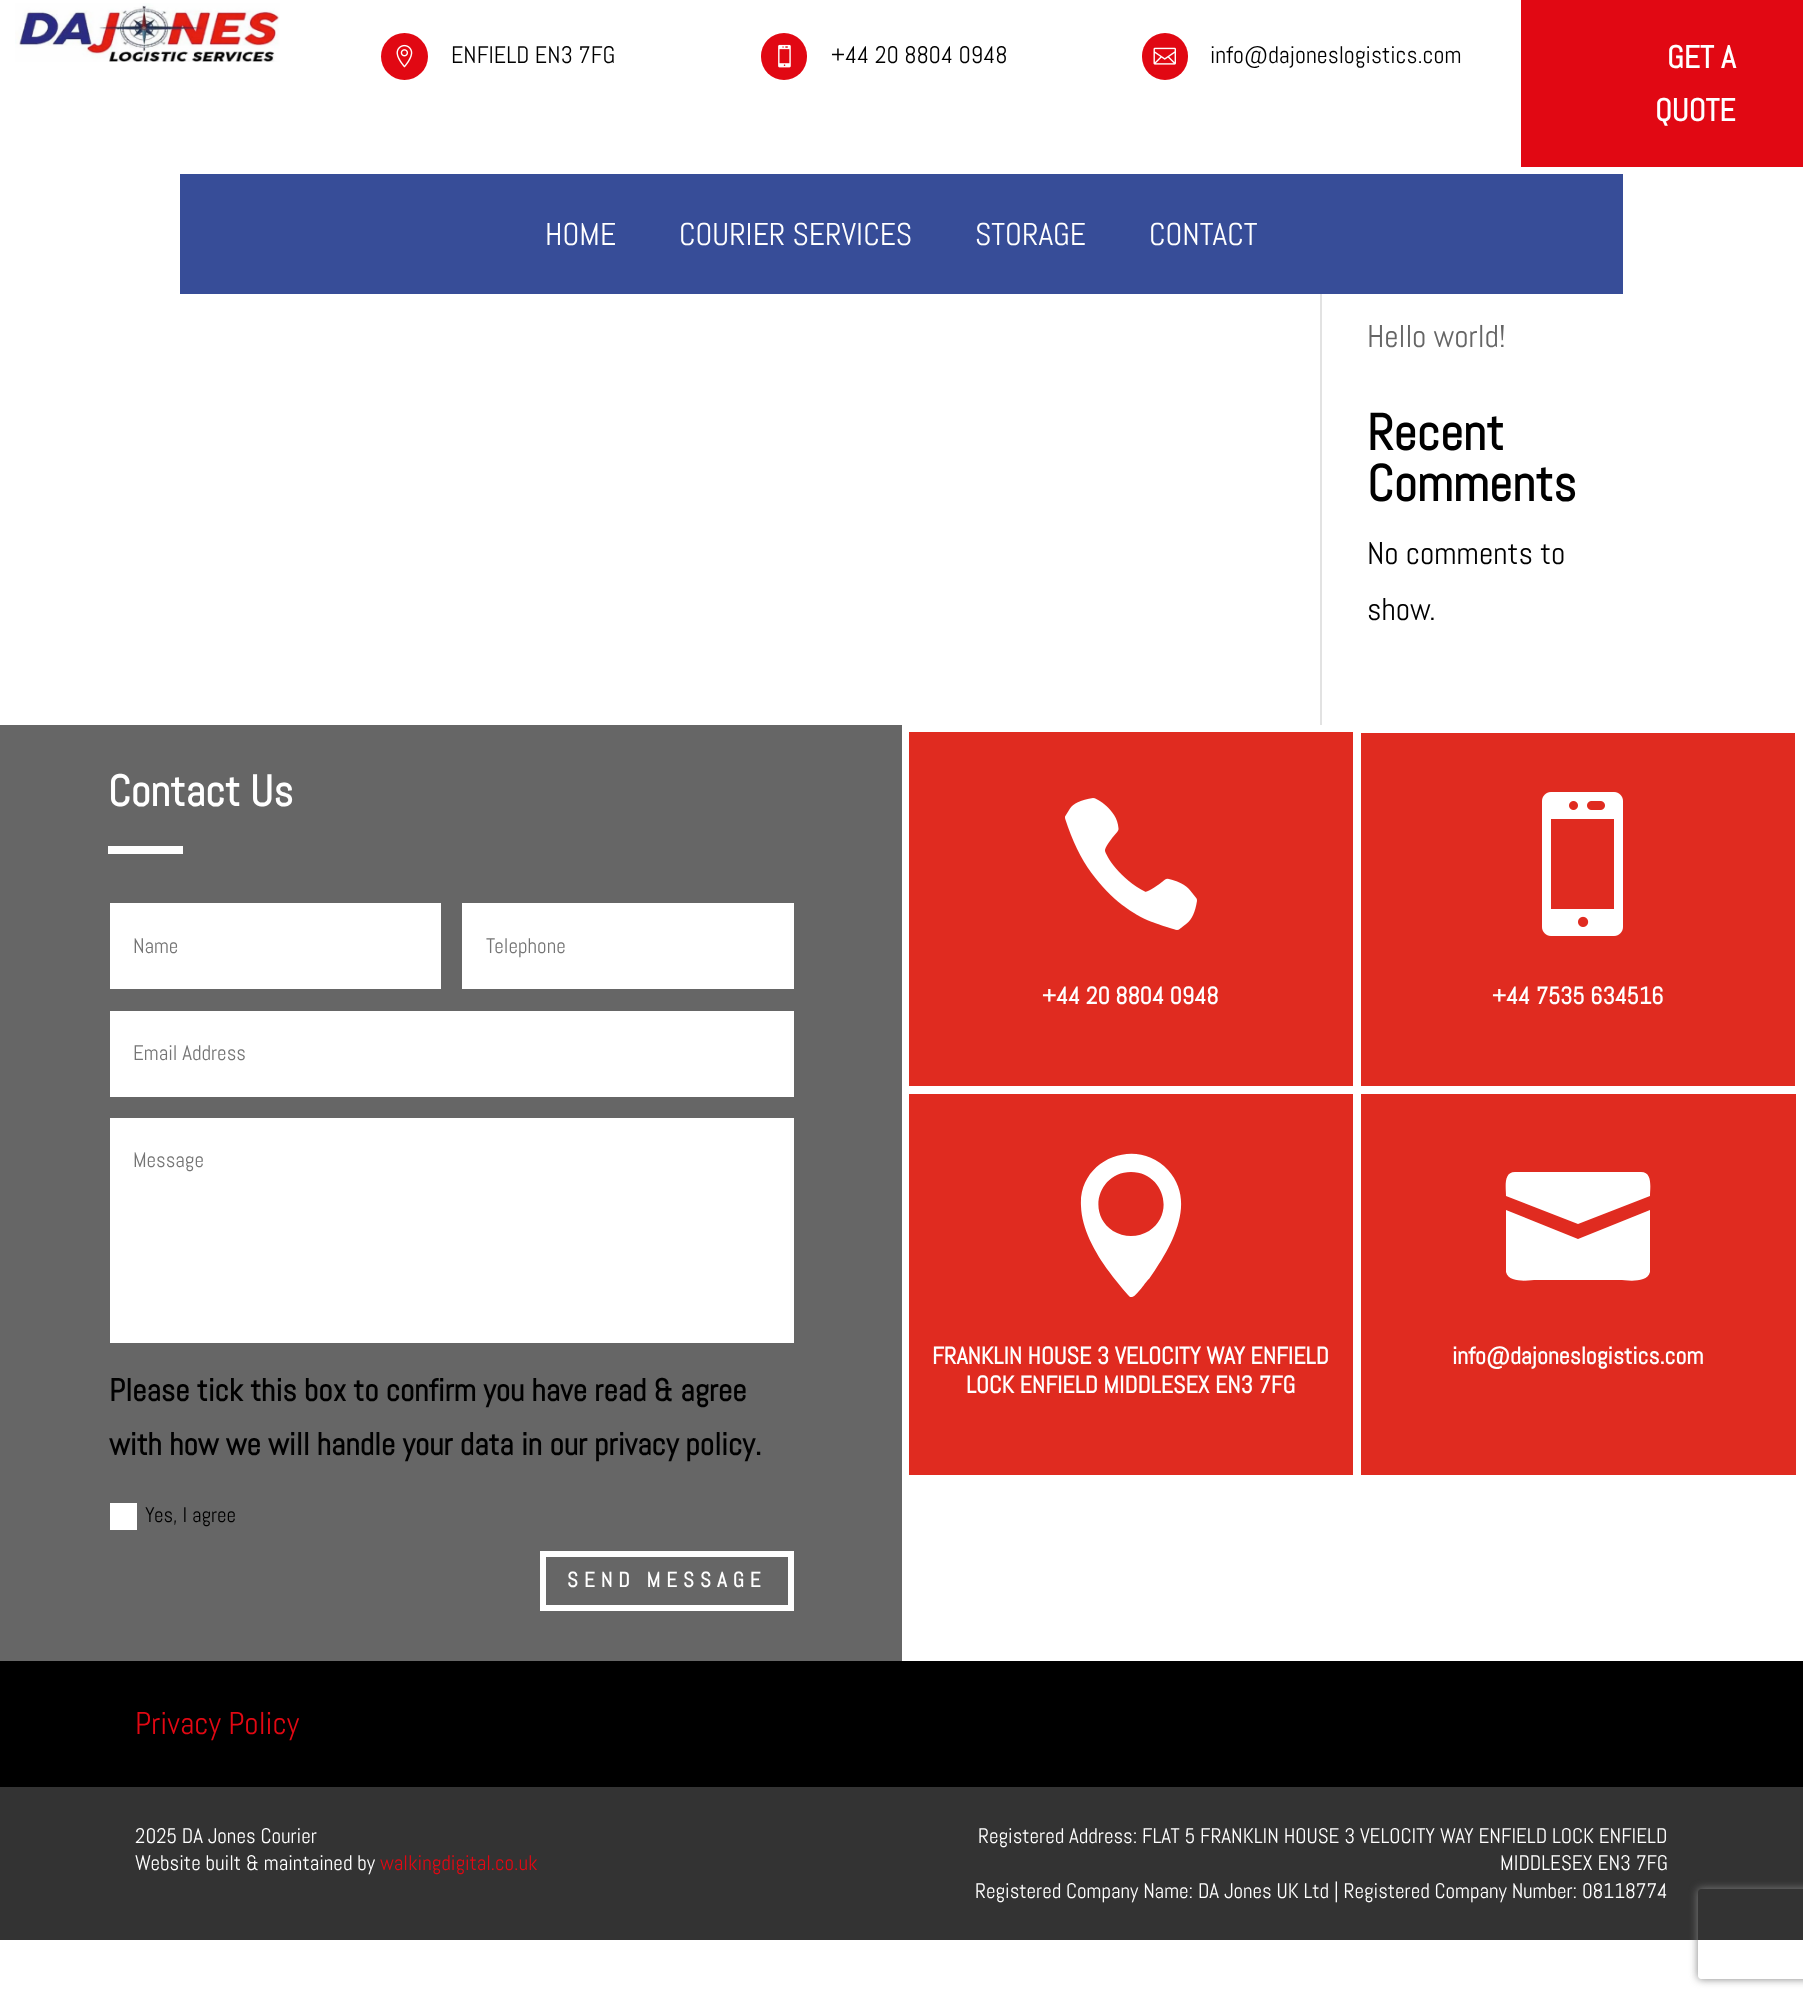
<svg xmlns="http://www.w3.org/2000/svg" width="1803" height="1999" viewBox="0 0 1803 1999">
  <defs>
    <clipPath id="clip1"><path d="M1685 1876H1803V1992H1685ZM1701 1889H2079C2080.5 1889 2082 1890.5 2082 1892V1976C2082 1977.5 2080.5 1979 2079 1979H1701C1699.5 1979 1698 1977.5 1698 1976V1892C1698 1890.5 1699.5 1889 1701 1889Z" clip-rule="evenodd"/></clipPath>
  </defs>
  <rect width="100%" height="100%" fill="rgb(255,255,255)"/>
  <image x="15" y="3" width="265" height="59" href="pic1.png"/>
  <circle cx="404.5" cy="56.5" r="23.5" fill="rgb(225,8,19)"/>
  <image x="396" y="44" width="17" height="24" href="pic2.png"/>
  <text x="451" y="63" font-family="Abel" font-size="24" fill="rgb(0,0,0)">ENFIELD EN3 7FG</text>
  <rect x="761" y="33" width="46" height="47" rx="23" fill="rgb(225,8,19)"/>
  <image x="778" y="44" width="13" height="24" href="pic3.png"/>
  <text x="831" y="63" font-family="Abel" font-size="24" fill="rgb(0,0,0)">+44 20 8804 0948</text>
  <rect x="1142" y="33" width="46" height="47" rx="23" fill="rgb(225,8,19)"/>
  <image x="1153" y="47" width="23" height="18" href="pic4.png"/>
  <text x="1210" y="63" font-family="Abel" font-size="24" fill="rgb(0,0,0)">info@dajoneslogistics.com</text>
  <rect x="1521" y="0" width="282" height="167" fill="rgb(225,8,19)"/>
  <g font-family="Abel" font-size="31.5" font-weight="bold" fill="rgb(255,255,255)">
    <text x="1667" y="68">GET A</text>
    <text x="1655" y="121">QUOTE</text>
  </g>
  <rect x="180" y="174" width="1443" height="120" fill="rgb(55,77,152)"/>
  <g font-family="Abel" font-size="31.5" fill="rgb(255,255,255)">
    <text x="545" y="245">HOME</text>
    <text x="679" y="245">COURIER SERVICES</text>
    <text x="975" y="245">STORAGE</text>
    <text x="1149" y="245">CONTACT</text>
  </g>
  <rect x="1320" y="294" width="2" height="431" fill="rgb(226,226,226)"/>
  <text x="1367" y="347" font-family="Abel" font-size="31.5" fill="rgb(102,102,102)">Hello world!</text>
  <g font-family="Abel" font-size="51" font-weight="bold" fill="rgb(0,0,0)">
    <text>
      <tspan x="1367" y="450">Recent</tspan>
      <tspan x="1367" y="501">Comments</tspan>
    </text>
  </g>
  <g font-family="Abel" font-size="31.5" fill="rgb(0,0,0)">
    <text>
      <tspan x="1367" y="564">No comments to</tspan>
      <tspan x="1367" y="620">show.</tspan>
    </text>
  </g>
  <rect x="0" y="725" width="902" height="936" fill="rgb(102,102,102)"/>
  <text x="108" y="806" font-family="Abel" font-size="43.5" font-weight="bold" fill="rgb(255,255,255)">Contact Us</text>
  <rect x="108" y="846" width="75" height="8" fill="rgb(255,255,255)"/>
  <rect x="110" y="903" width="331" height="86" fill="rgb(255,255,255)"/>
  <text x="133" y="953" font-family="Abel" font-size="21" fill="rgb(117,117,117)">Name</text>
  <rect x="462" y="903" width="332" height="86" fill="rgb(255,255,255)"/>
  <text x="486" y="953" font-family="Abel" font-size="21" fill="rgb(117,117,117)">Telephone</text>
  <rect x="110" y="1011" width="684" height="86" fill="rgb(255,255,255)"/>
  <text x="133" y="1060" font-family="Abel" font-size="21" fill="rgb(117,117,117)">Email Address</text>
  <rect x="110" y="1118" width="684" height="225" fill="rgb(255,255,255)"/>
  <text x="133" y="1167" font-family="Abel" font-size="21" fill="rgb(117,117,117)">Message</text>
  <g font-family="Abel" font-size="31.5" font-weight="bold" fill="rgb(0,0,0)">
    <text>
      <tspan x="109" y="1401">Please tick this box to confirm you have read &amp; agree</tspan>
      <tspan x="109" y="1455">with how we will handle your data in our privacy policy.</tspan>
    </text>
  </g>
  <rect x="110" y="1503" width="27" height="27" fill="rgb(255,255,255)"/>
  <text x="145" y="1522" font-family="Abel" font-size="21" fill="rgb(0,0,0)">Yes, I agree</text>
  <rect x="543" y="1554" width="248" height="54" fill="none" stroke="rgb(255,255,255)" stroke-width="6"/>
  <text x="567" y="1587" font-family="Abel" font-size="21" font-weight="bold" letter-spacing="6" fill="rgb(255,255,255)">SEND MESSAGE</text>
  <rect x="909" y="732" width="886" height="354" fill="rgb(224,43,32)"/>
  <image x="1065" y="798" width="132" height="132" href="pic5.png"/>
  <text x="1042" y="1004" font-family="Abel" font-size="24" font-weight="bold" fill="rgb(255,255,255)">+44 20 8804 0948</text>
  <rect x="1357" y="729" width="442" height="361" fill="none" stroke="rgb(255,255,255)" stroke-width="8"/>
  <image x="1542" y="792" width="81" height="144" href="pic6.png"/>
  <text x="1492" y="1004" font-family="Abel" font-size="24" font-weight="bold" fill="rgb(255,255,255)">+44 7535 634516</text>
  <rect x="909" y="1094" width="887" height="381" fill="rgb(224,43,32)"/>
  <path d="M1128 1295L1130 1297H1132C1136 1297 1147 1280 1149 1279C1170 1249 1198 1203 1168 1170C1137 1136 1078 1159 1081 1206C1082 1238 1107 1271 1128 1295ZM1131 1172C1163 1172 1176 1213 1149 1231C1144 1234 1137 1236 1131 1236C1125 1236 1118 1234 1113 1231C1086 1213 1099 1172 1131 1172Z" fill="rgb(255,255,255)"/>
  <g font-family="Abel" font-size="24" font-weight="bold" fill="rgb(255,255,255)">
    <text x="932" y="1364">FRANKLIN HOUSE 3 VELOCITY WAY ENFIELD</text>
    <text x="966" y="1393">LOCK ENFIELD MIDDLESEX EN3 7FG</text>
  </g>
  <rect x="1353" y="1094" width="8" height="388" fill="rgb(255,255,255)"/>
  <path d="M1641 1172H1515C1503 1172 1506 1188 1506 1196L1578 1224L1650 1196C1650 1188 1653 1172 1641 1172ZM1506 1210V1272C1509 1284 1531 1280 1536 1280H1620C1625 1280 1647 1284 1650 1272V1210L1578 1239Z" fill="rgb(255,255,255)"/>
  <text x="1452" y="1364" font-family="Abel" font-size="24" font-weight="bold" fill="rgb(255,255,255)">info@dajoneslogistics.com</text>
  <rect x="0" y="1661" width="1803" height="126" fill="rgb(0,0,0)"/>
  <text x="135" y="1734" font-family="Abel" font-size="31.5" fill="rgb(225,8,19)">Privacy Policy</text>
  <rect x="0" y="1787" width="1803" height="153" fill="rgb(51,51,51)"/>
  <g font-family="Abel" font-size="21" fill="rgb(255,255,255)">
    <text>
      <tspan x="135" y="1843">2025 DA Jones Courier</tspan>
      <tspan x="135" y="1870">Website built &amp; maintained by</tspan>
    </text>
  </g>
  <text x="380" y="1870" font-family="Abel" font-size="21" fill="rgb(225,8,19)">walkingdigital.co.uk</text>
  <g font-family="Abel" font-size="21" fill="rgb(255,255,255)">
    <text x="978" y="1843">Registered Address: FLAT 5 FRANKLIN HOUSE 3 VELOCITY WAY ENFIELD LOCK ENFIELD</text>
    <text x="1500" y="1870">MIDDLESEX EN3 7FG</text>
    <text x="975" y="1898">Registered Company Name: DA Jones UK Ltd | Registered Company Number: 08118774</text>
  </g>
  <g clip-path="url(#clip1)">
    <rect x="1698" y="1889" width="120" height="90" rx="3" fill="rgb(128,128,128)" filter="blur(4px)"/>
  </g>
</svg>
